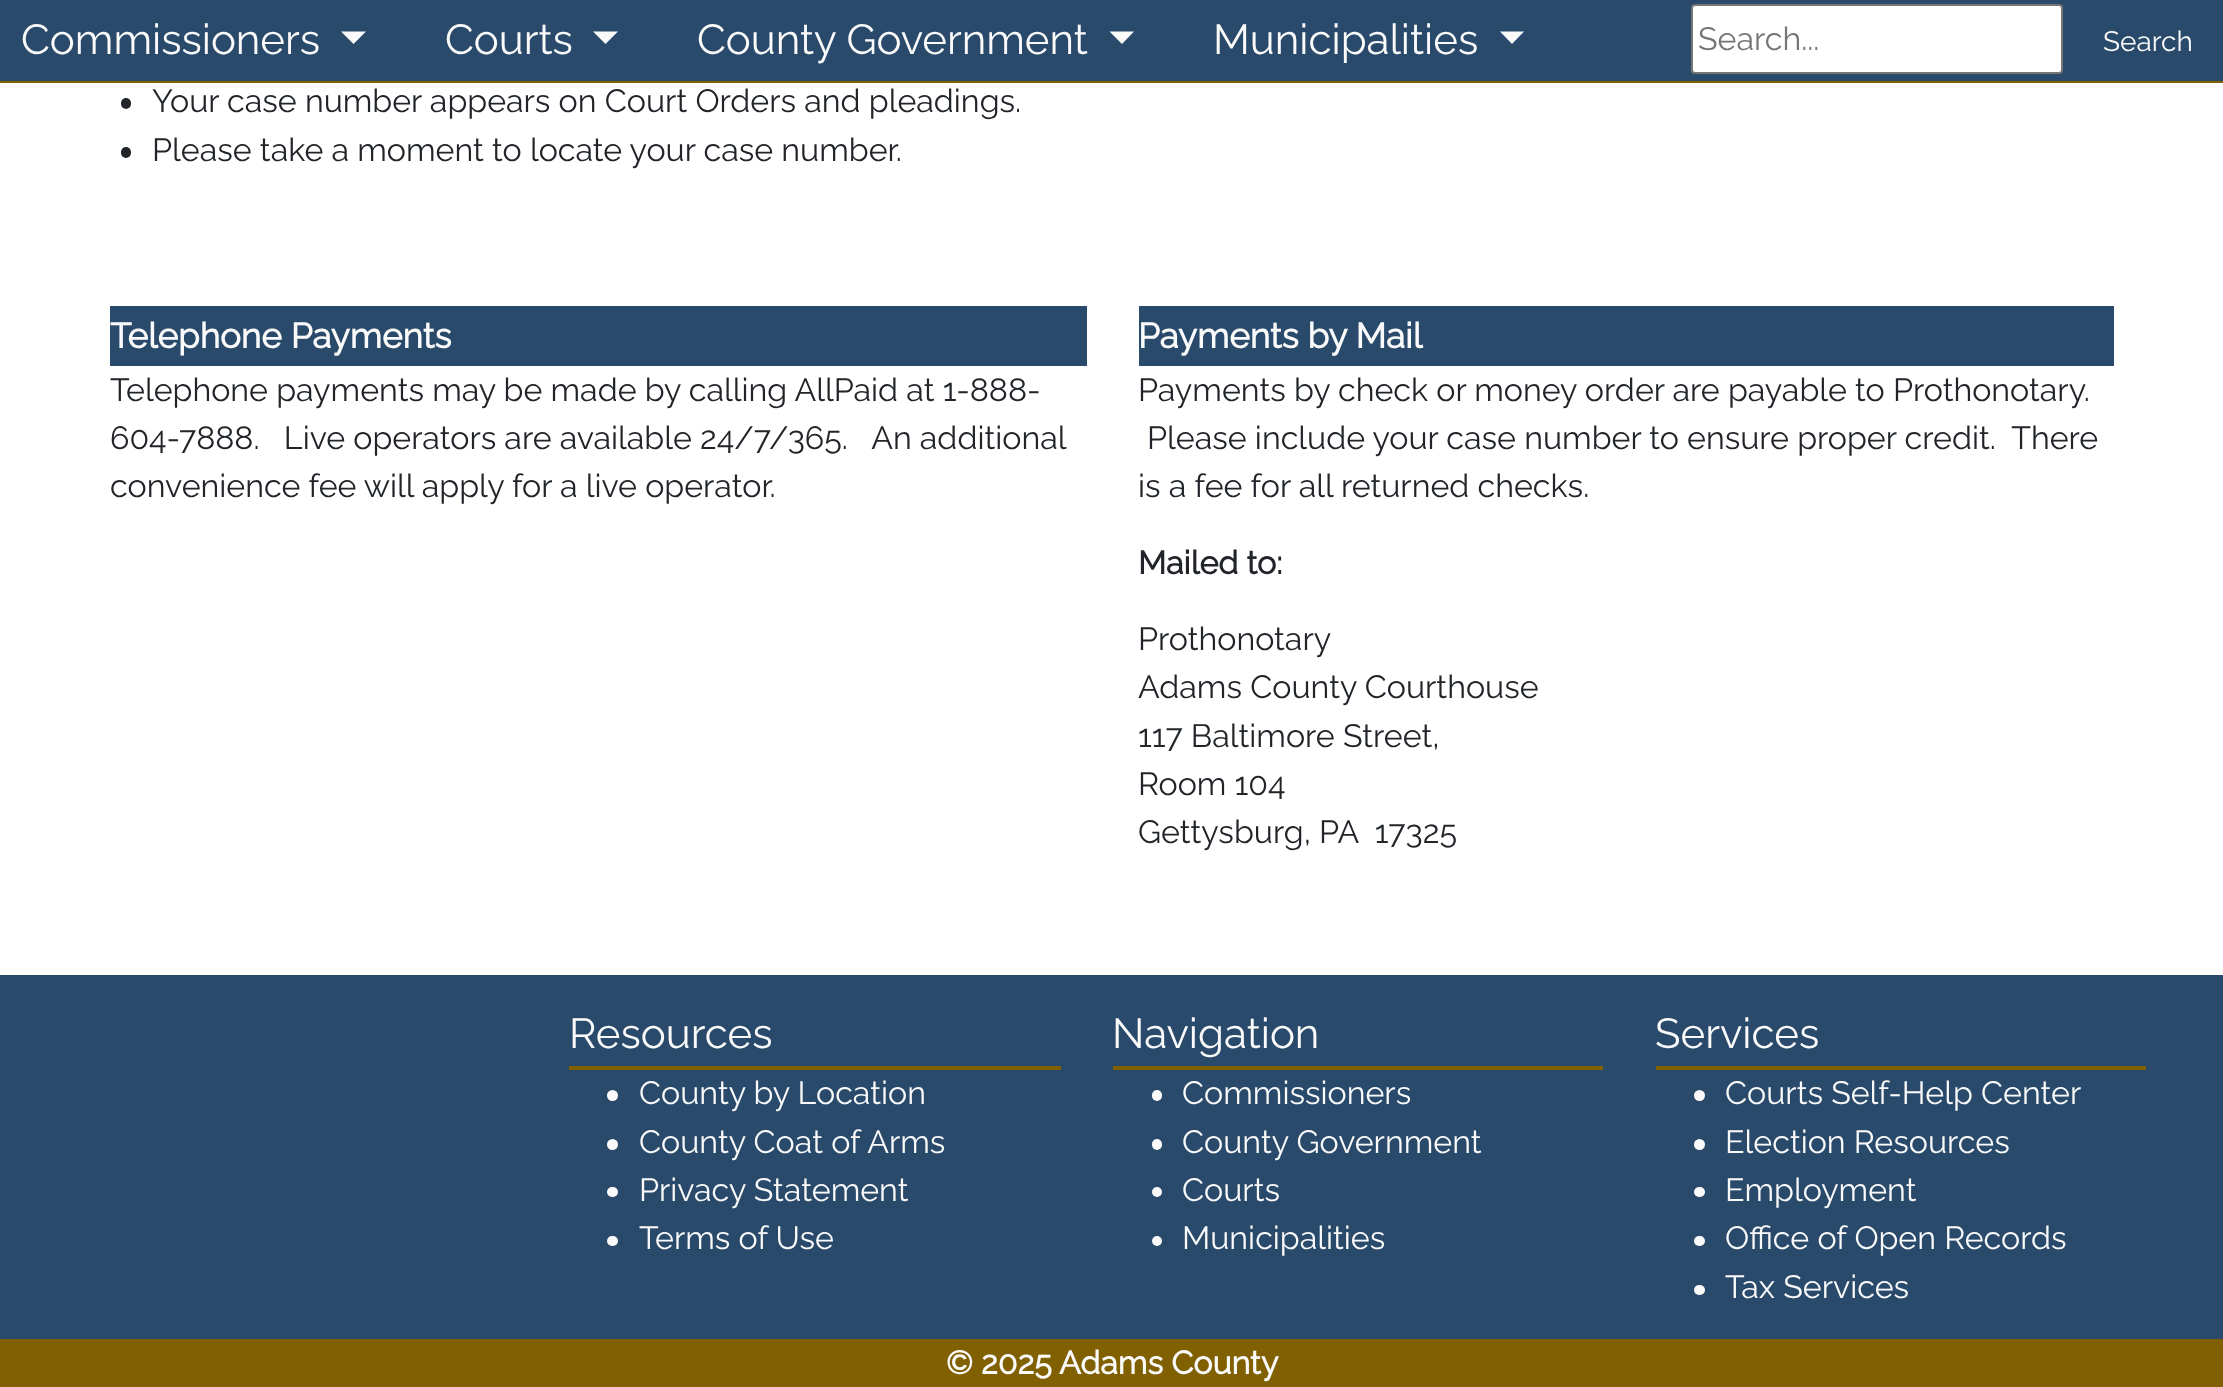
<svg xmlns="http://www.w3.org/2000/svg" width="2223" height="1387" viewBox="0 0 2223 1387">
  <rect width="100%" height="100%" fill="rgb(255,255,255)"/>
  <rect x="0" y="0" width="2223" height="81" fill="rgb(41,74,107)"/>
  <rect x="0" y="81" width="2223" height="2" fill="rgb(128,96,0)"/>
  <text x="21" y="54" font-family="Raleway" font-size="42" font-weight="100" fill="rgb(250,250,250)">Commissioners</text>
  <path d="M341 31.5H366L353.5 44Z" fill="rgb(250,250,250)"/>
  <text x="445" y="54" font-family="Raleway" font-size="42" font-weight="100" fill="rgb(250,250,250)">Courts</text>
  <path d="M593 31.5H618L605.5 44Z" fill="rgb(250,250,250)"/>
  <text x="697" y="54" font-family="Raleway" font-size="42" font-weight="100" fill="rgb(250,250,250)">County Government</text>
  <path d="M1109.5 31.5H1134L1122 44Z" fill="rgb(250,250,250)"/>
  <text x="1213" y="54" font-family="Raleway" font-size="42" font-weight="100" fill="rgb(250,250,250)">Municipalities</text>
  <path d="M1500 31.5H1524L1512 44Z" fill="rgb(250,250,250)"/>
  <rect x="1692" y="5" width="370" height="68" rx="3" fill="rgb(255,255,255)" stroke="rgb(118,118,118)" stroke-width="2"/>
  <text x="1698" y="50" font-family="Raleway" font-size="32.2" font-weight="100" fill="rgb(117,117,117)">Search...</text>
  <text x="2103" y="51" font-family="Raleway" font-size="28" font-weight="100" fill="rgb(250,250,250)">Search</text>
  <rect x="121" y="98" width="10" height="11" rx="5" fill="rgb(33,37,41)"/>
  <text x="152" y="112" font-family="Raleway" font-size="32.2" font-weight="100" fill="rgb(33,37,41)">Your case number appears on Court Orders and pleadings.</text>
  <rect x="121" y="147" width="10" height="11" rx="5" fill="rgb(33,37,41)"/>
  <text x="152" y="161" font-family="Raleway" font-size="32.2" font-weight="100" fill="rgb(33,37,41)">Please take a moment to locate your case number.</text>
  <rect x="110" y="306" width="977" height="60" fill="rgb(41,74,107)"/>
  <text x="110" y="348" font-family="Raleway" font-size="35" font-weight="bold" fill="rgb(250,250,250)">Telephone Payments</text>
  <g font-family="Raleway" font-size="32.2" font-weight="100" fill="rgb(33,37,41)">
    <text xml:space="preserve"><tspan x="110" y="401">Telephone payments may be made by calling AllPaid at 1-888-</tspan><tspan x="110" y="449" word-spacing="-0.1">604-7888.   Live operators are available 24/7/365.   An additional</tspan><tspan x="110" y="497">convenience fee will apply for a live operator.</tspan></text>
  </g>
  <rect x="1139" y="306" width="975" height="60" fill="rgb(41,74,107)"/>
  <text x="1138" y="348" font-family="Raleway" font-size="35" font-weight="bold" fill="rgb(250,250,250)">Payments by Mail</text>
  <g font-family="Raleway" font-size="32.2" font-weight="100" fill="rgb(33,37,41)">
    <text x="1138" y="401">Payments by check or money order are payable to Prothonotary.</text>
    <text x="1147" y="449" xml:space="preserve">Please include your case number to ensure proper credit.  There</text>
    <text x="1138" y="497">is a fee for all returned checks.</text>
  </g>
  <text x="1138" y="574" font-family="Raleway" font-size="32.2" font-weight="bold" fill="rgb(33,37,41)">Mailed to:</text>
  <g font-family="Raleway" font-size="32.2" font-weight="100" fill="rgb(33,37,41)">
    <text xml:space="preserve"><tspan x="1138" y="650">Prothonotary</tspan><tspan x="1138" y="698">Adams County Courthouse</tspan><tspan x="1138" y="747">117 Baltimore Street,</tspan><tspan x="1138" y="795">Room 104</tspan><tspan x="1138" y="843">Gettysburg, PA  17325</tspan></text>
  </g>
  <rect x="0" y="975" width="2223" height="364" fill="rgb(41,74,107)"/>
  <rect x="569" y="1066" width="492" height="4" fill="rgb(128,96,0)"/>
  <text x="569" y="1048" font-family="Raleway" font-size="42" font-weight="100" fill="rgb(250,250,250)">Resources</text>
  <circle cx="612.5" cy="1095.5" r="5.5" fill="rgb(250,250,250)"/>
  <text x="639" y="1104" font-family="Raleway" font-size="32.2" font-weight="100" fill="rgb(250,250,250)">County by Location</text>
  <circle cx="612.5" cy="1144.5" r="5.5" fill="rgb(250,250,250)"/>
  <text x="639" y="1153" font-family="Raleway" font-size="32.2" font-weight="100" fill="rgb(250,250,250)">County Coat of Arms</text>
  <rect x="607" y="1187" width="11" height="10" rx="5" fill="rgb(250,250,250)"/>
  <text x="639" y="1201" font-family="Raleway" font-size="32.2" font-weight="100" fill="rgb(250,250,250)">Privacy Statement</text>
  <rect x="607" y="1236" width="11" height="10" rx="5" fill="rgb(250,250,250)"/>
  <text x="639" y="1249" font-family="Raleway" font-size="32.2" font-weight="100" fill="rgb(250,250,250)">Terms of Use</text>
  <rect x="1113" y="1066" width="490" height="4" fill="rgb(128,96,0)"/>
  <text x="1112" y="1048" font-family="Raleway" font-size="42" font-weight="100" fill="rgb(250,250,250)">Navigation</text>
  <rect x="1152" y="1090" width="10" height="11" rx="5" fill="rgb(250,250,250)"/>
  <text x="1182" y="1104" font-family="Raleway" font-size="32.2" font-weight="100" fill="rgb(250,250,250)">Commissioners</text>
  <rect x="1152" y="1139" width="10" height="11" rx="5" fill="rgb(250,250,250)"/>
  <text x="1182" y="1153" font-family="Raleway" font-size="32.2" font-weight="100" fill="rgb(250,250,250)">County Government</text>
  <circle cx="1157" cy="1192" r="5" fill="rgb(250,250,250)"/>
  <text x="1182" y="1201" font-family="Raleway" font-size="32.2" font-weight="100" fill="rgb(250,250,250)">Courts</text>
  <circle cx="1157" cy="1241" r="5" fill="rgb(250,250,250)"/>
  <text x="1182" y="1249" font-family="Raleway" font-size="32.2" font-weight="100" fill="rgb(250,250,250)">Municipalities</text>
  <rect x="1656" y="1066" width="490" height="4" fill="rgb(128,96,0)"/>
  <text x="1655" y="1048" font-family="Raleway" font-size="42" font-weight="100" fill="rgb(250,250,250)">Services</text>
  <circle cx="1699.5" cy="1095.5" r="5.5" fill="rgb(250,250,250)"/>
  <text x="1725" y="1104" font-family="Raleway" font-size="32.2" font-weight="100" fill="rgb(250,250,250)">Courts Self-Help Center</text>
  <circle cx="1699.5" cy="1144.5" r="5.5" fill="rgb(250,250,250)"/>
  <text x="1725" y="1153" font-family="Raleway" font-size="32.2" font-weight="100" fill="rgb(250,250,250)">Election Resources</text>
  <rect x="1694" y="1187" width="11" height="10" rx="5" fill="rgb(250,250,250)"/>
  <text x="1725" y="1201" font-family="Raleway" font-size="32.2" font-weight="100" fill="rgb(250,250,250)">Employment</text>
  <rect x="1694" y="1236" width="11" height="10" rx="5" fill="rgb(250,250,250)"/>
  <text x="1725" y="1249" font-family="Raleway" font-size="32.2" font-weight="100" fill="rgb(250,250,250)">Office of Open Records</text>
  <rect x="1694" y="1285" width="11" height="10" rx="5" fill="rgb(250,250,250)"/>
  <text x="1725" y="1298" font-family="Raleway" font-size="32.2" font-weight="100" fill="rgb(250,250,250)">Tax Services</text>
  <rect x="0" y="1339" width="2223" height="48" fill="rgb(128,96,0)"/>
  <text x="946" y="1374" font-family="Raleway" font-size="32.2" font-weight="bold" fill="rgb(250,250,250)">© 2025 Adams County</text>
</svg>
